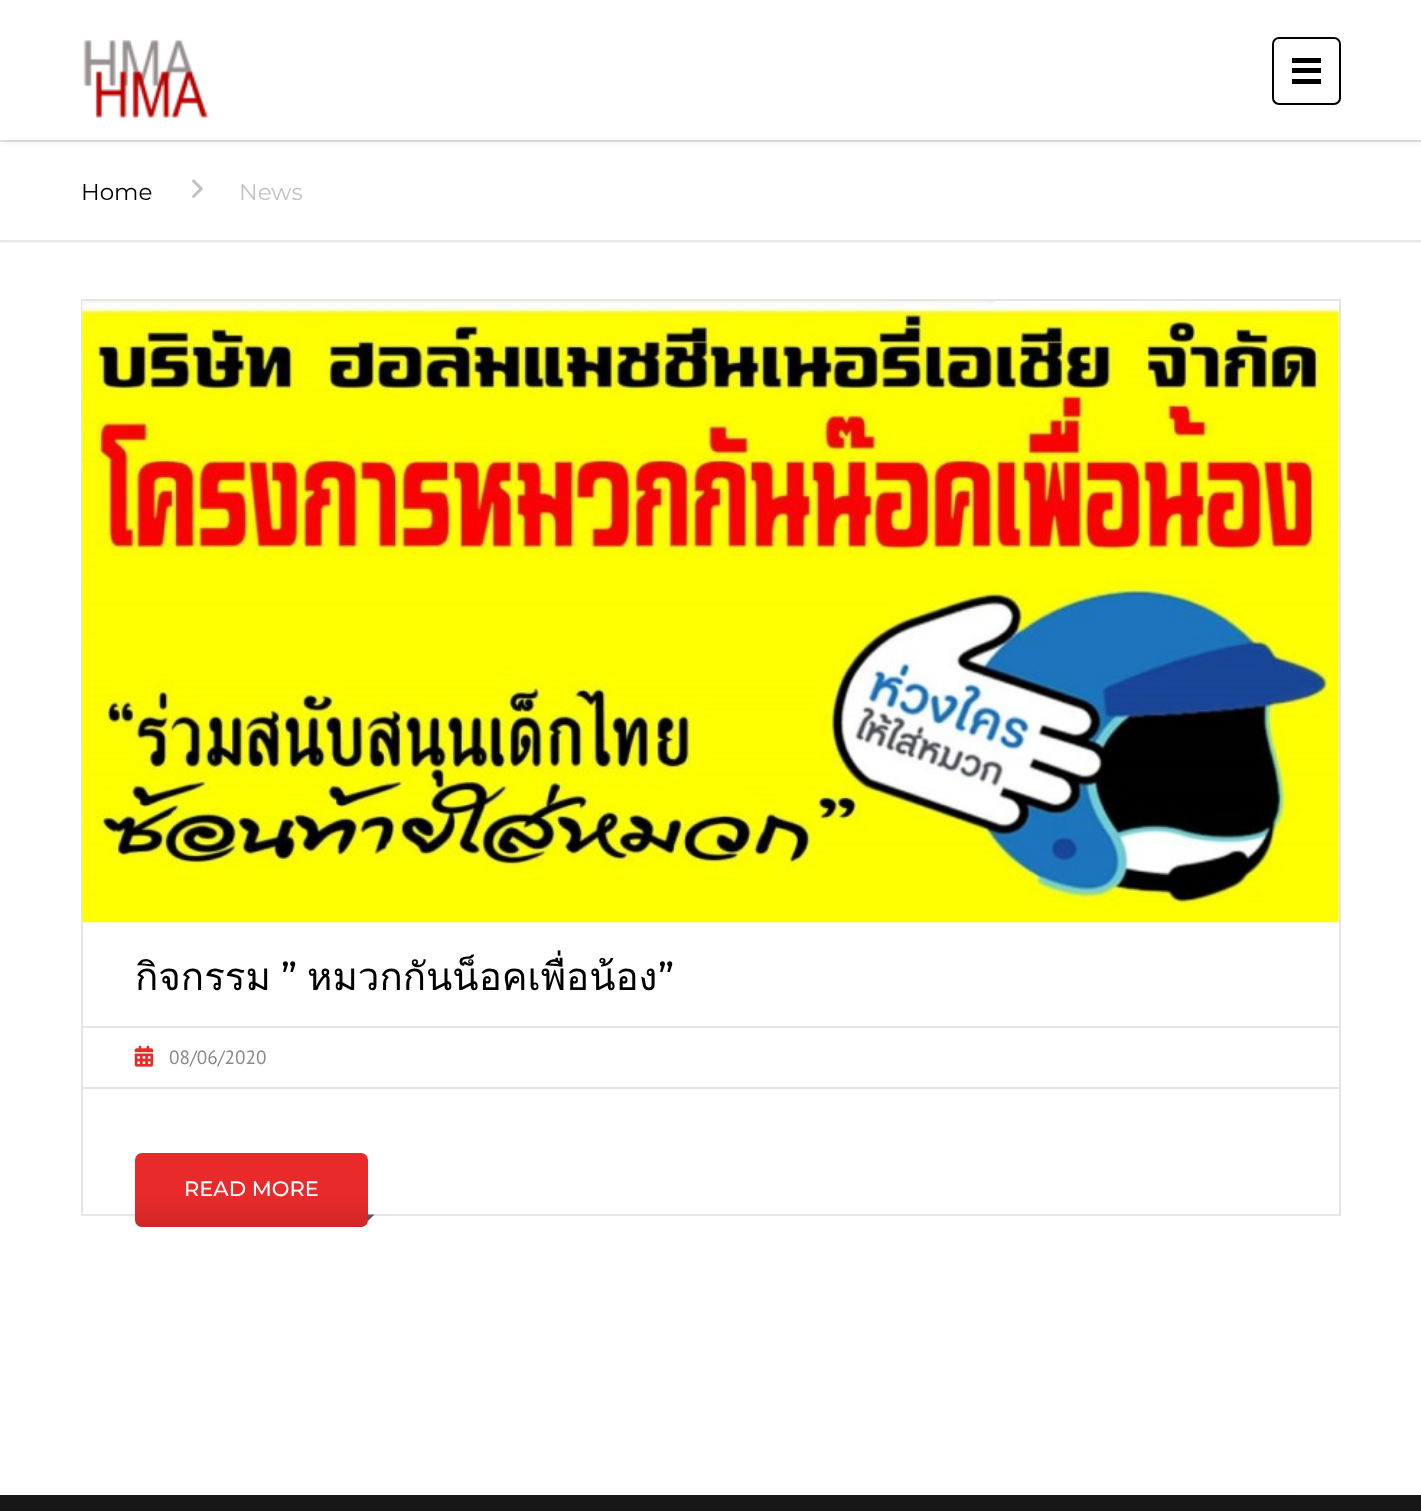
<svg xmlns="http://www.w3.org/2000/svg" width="1421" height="1511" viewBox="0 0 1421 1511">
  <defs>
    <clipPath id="clip1"><rect x="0" y="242" width="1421" height="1"/></clipPath>
    <linearGradient id="g1" gradientUnits="userSpaceOnUse" x1="251" y1="1227" x2="251" y2="1153"><stop offset="0" stop-color="rgb(0,0,0)" stop-opacity="0.1"/><stop offset="0.43" stop-color="rgb(0,0,0)" stop-opacity="0"/></linearGradient>
  </defs>
  <rect width="100%" height="100%" fill="rgb(23,23,23)"/>
  <rect x="1299" y="1383" width="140" height="105" rx="4" fill="rgb(128,128,128)" filter="blur(4.5px)"/>
  <rect x="0" y="142" width="1421" height="1353" fill="rgb(255,255,255)"/>
  <g clip-path="url(#clip1)">
    <rect x="0" y="140" width="1421" height="102" fill="rgba(0,0,0,0.14)" filter="blur(1px)"/>
  </g>
  <rect x="0" y="140" width="1421" height="2" fill="rgb(231,231,231)"/>
  <rect x="2" y="0" width="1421" height="140" fill="rgba(0,0,0,0.15)" filter="blur(3.5px)"/>
  <rect x="0" y="0" width="1421" height="140" fill="rgb(255,255,255)"/>
  <image x="83" y="39" width="126" height="79" href="pic1.png"/>
  <rect x="1273" y="38" width="67" height="66" rx="6" fill="none" stroke="rgb(0,0,0)" stroke-width="2"/>
  <rect x="1292" y="58" width="29" height="5" fill="rgb(0,0,0)"/>
  <rect x="1292" y="68" width="29" height="5" fill="rgb(0,0,0)"/>
  <rect x="1292" y="79" width="29" height="5" fill="rgb(0,0,0)"/>
  <rect x="0" y="240" width="1421" height="2" fill="rgb(231,231,231)"/>
  <text x="81" y="200" font-family="Montserrat" font-size="23" fill="rgb(0,0,0)">Home</text>
  <image x="192" y="179" width="11" height="19" href="pic2.png"/>
  <text x="239" y="200" font-family="Montserrat" font-size="23" fill="rgb(195,195,195)">News</text>
  <rect x="82" y="300" width="1258" height="915" fill="none" stroke="rgb(229,229,229)" stroke-width="2"/>
  <image x="82" y="301" width="1257" height="622" href="pic3.png"/>
  <text x="135" y="990" font-family="Loma" font-size="38.5" fill="rgb(0,0,0)">กิจกรรม</text>
  <text x="281" y="990" font-family="Montserrat" font-size="38.5" font-weight="500" fill="rgb(0,0,0)">”</text>
  <text x="307" y="990" font-family="Loma" font-size="38.5" fill="rgb(0,0,0)">หมวกกันน็อคเพื่อน้อง</text>
  <text x="658" y="990" font-family="Montserrat" font-size="38.5" font-weight="500" fill="rgb(0,0,0)">”</text>
  <rect x="82" y="1026" width="1257" height="2" fill="rgb(229,229,229)"/>
  <rect x="82" y="1087" width="1257" height="2" fill="rgb(229,229,229)"/>
  <image x="134" y="1045" width="20" height="22" href="pic4.png"/>
  <text x="169" y="1064" font-family="PT Sans" font-size="19.25" fill="rgb(137,137,137)">08/06/2020</text>
  <rect x="135" y="1153" width="233" height="74" rx="7" fill="rgb(232,42,42)"/>
  <rect x="135" y="1153" width="233" height="74" rx="7" fill="url(#g1)"/>
  <text x="184" y="1196" font-family="Montserrat" font-size="21" font-weight="500" fill="rgb(255,255,255)">READ MORE</text>
  <path d="M367.5 1214.5H374.5L367.5 1221.5Z" fill="rgb(89,89,89)"/>
</svg>
